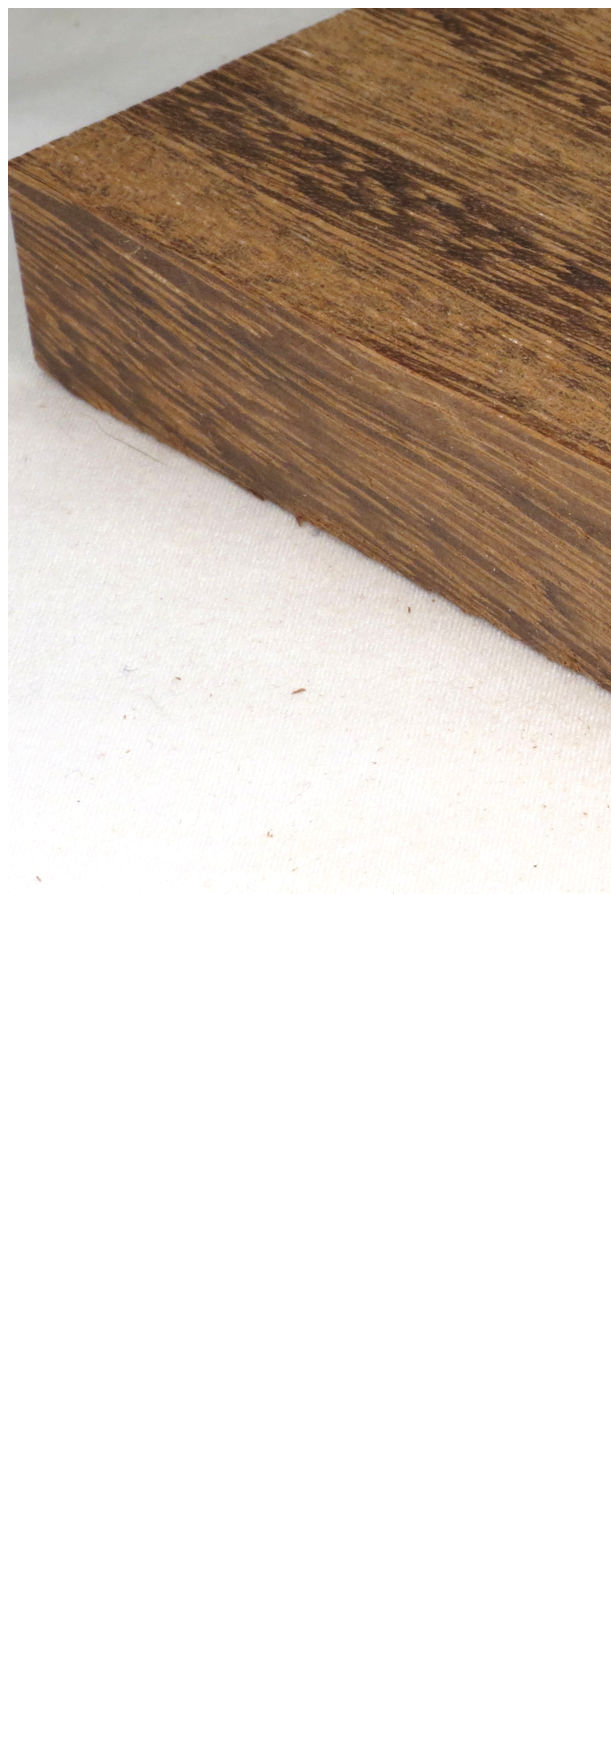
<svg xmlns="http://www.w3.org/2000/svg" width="611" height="1758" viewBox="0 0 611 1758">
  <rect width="100%" height="100%" fill="rgb(255,255,255)"/>
  <image x="8" y="8" width="603" height="886" href="pic1.png"/>
</svg>
